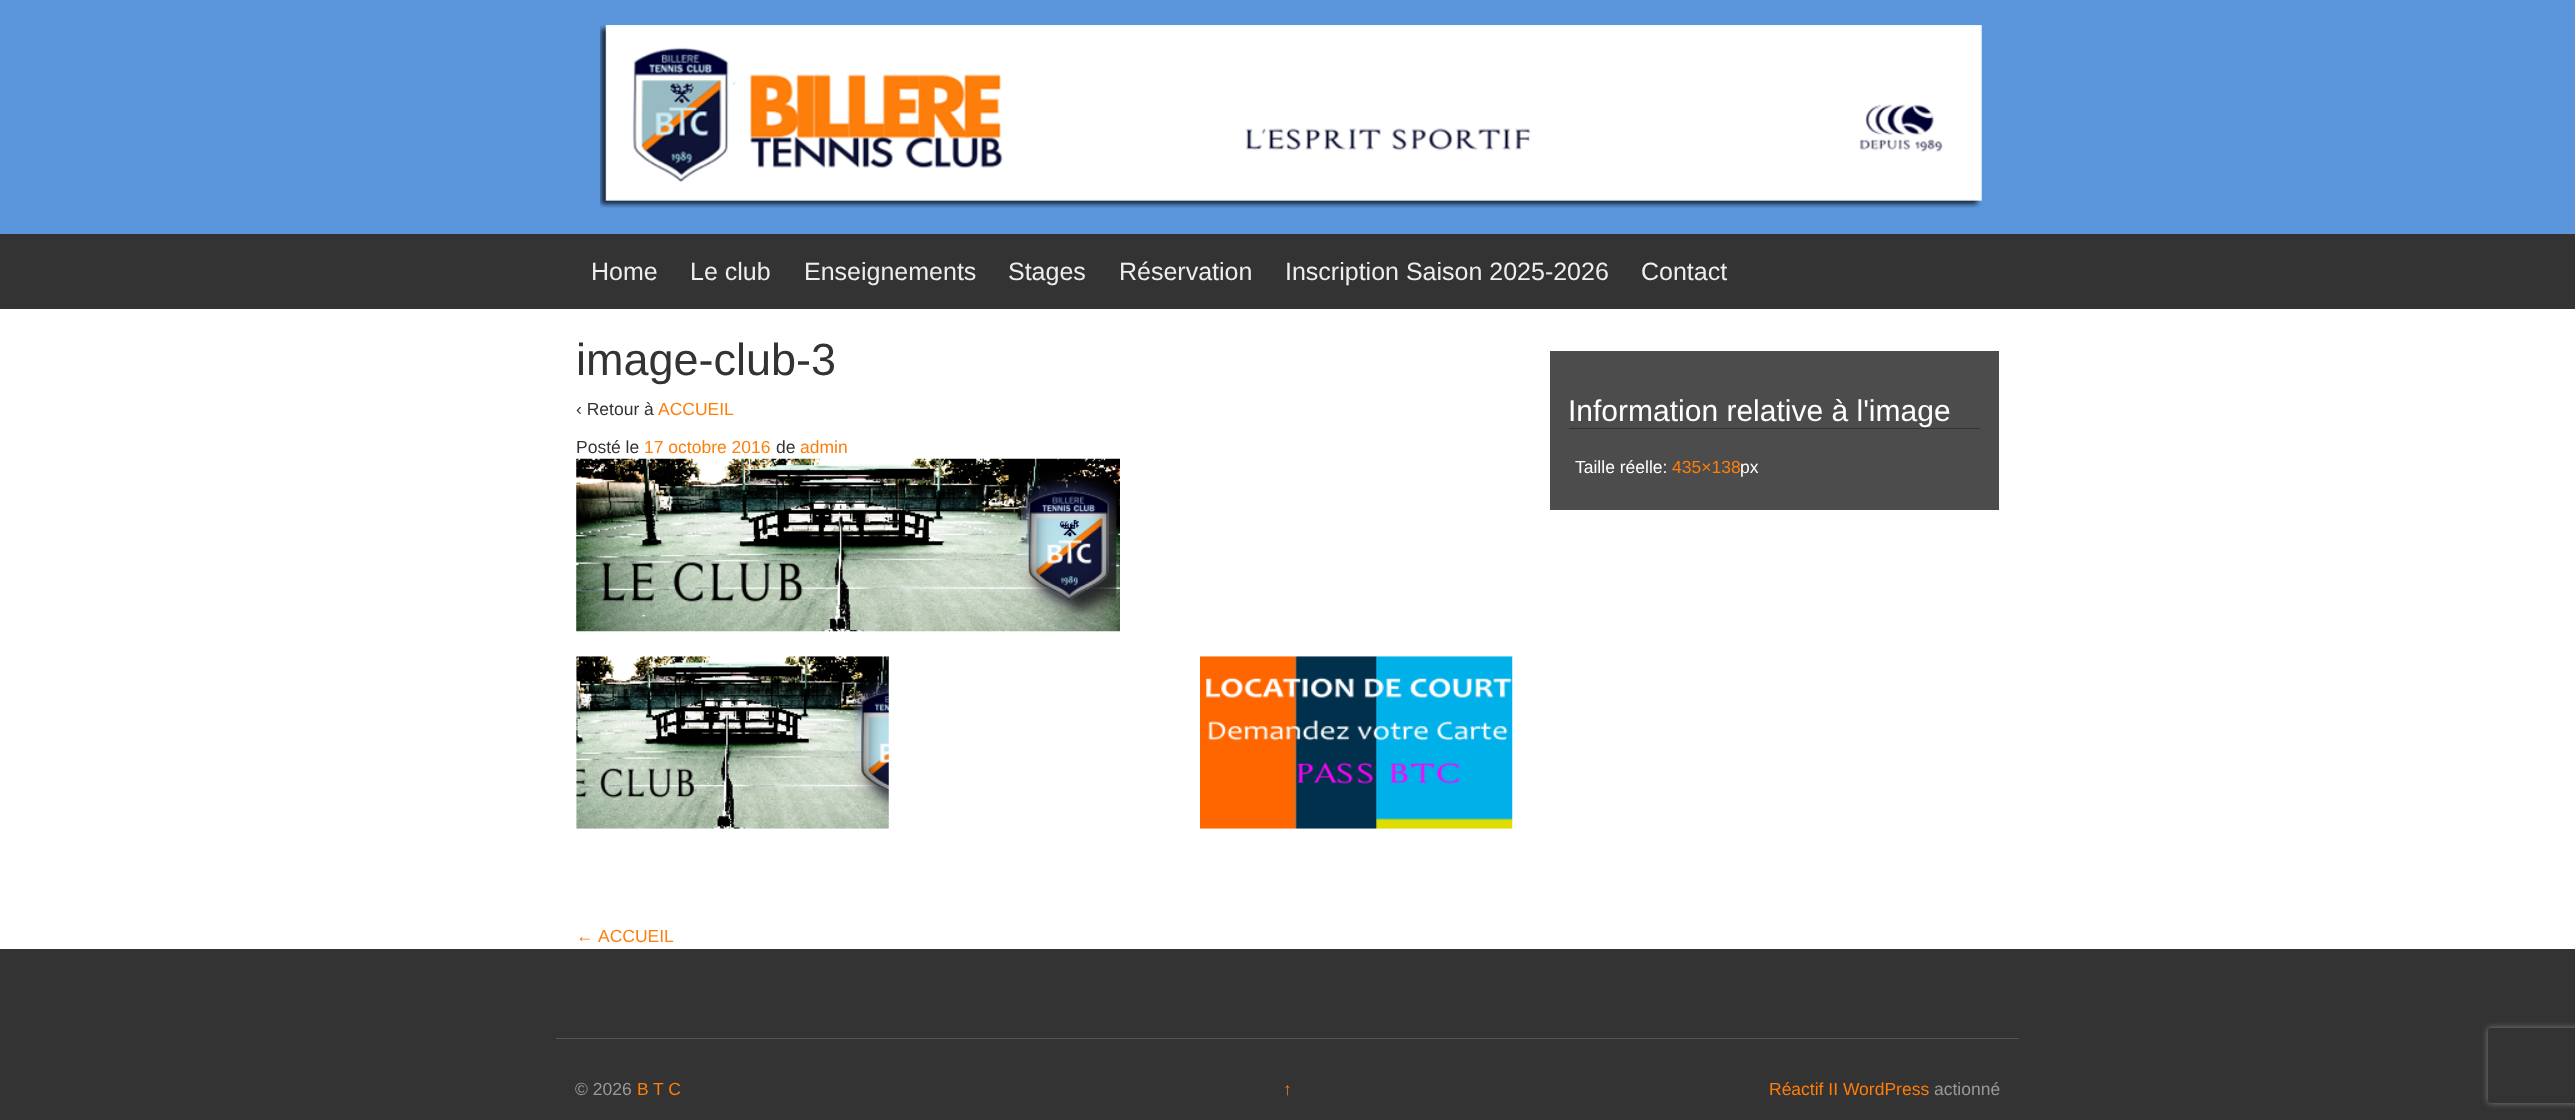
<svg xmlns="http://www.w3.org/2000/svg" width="2575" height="1120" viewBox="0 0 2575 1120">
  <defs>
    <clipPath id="clip1"><path d="M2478 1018H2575V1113H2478ZM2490.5 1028H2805.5C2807 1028 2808 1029 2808 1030.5V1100.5C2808 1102 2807 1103 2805.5 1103H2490.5C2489 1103 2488 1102 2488 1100.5V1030.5C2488 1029 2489 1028 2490.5 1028Z" clip-rule="evenodd"/></clipPath>
  </defs>
  <rect width="100%" height="100%" fill="rgb(255,255,255)"/>
  <rect x="0" y="0" width="2575" height="234" fill="rgb(91,150,221)"/>
  <image x="600" y="25" width="1382" height="183" href="pic1.png"/>
  <rect x="0" y="234" width="2575" height="75" fill="rgb(51,51,51)"/>
  <g font-family="Liberation Sans" font-size="25" fill="rgb(238,238,238)">
    <text x="591" y="280">Home</text>
    <text x="690" y="280">Le club</text>
    <text x="804" y="280">Enseignements</text>
    <text x="1008" y="280">Stages</text>
    <text x="1119" y="280">Réservation</text>
    <text x="1285" y="280">Inscription Saison 2025-2026</text>
    <text x="1641" y="280">Contact</text>
  </g>
  <text x="576" y="375" font-family="Liberation Sans" font-size="45" fill="rgb(51,51,51)">image-club-3</text>
  <text x="576" y="415" font-family="Liberation Sans" font-size="17.5" fill="rgb(51,51,51)">‹ Retour à</text>
  <text x="658" y="415" font-family="Liberation Sans" font-size="17.5" fill="rgb(253,126,11)">ACCUEIL</text>
  <text x="576" y="453" font-family="Liberation Sans" font-size="17.5" fill="rgb(51,51,51)">Posté le</text>
  <text x="644" y="453" font-family="Liberation Sans" font-size="17.5" fill="rgb(253,126,11)">17 octobre 2016</text>
  <text x="776" y="453" font-family="Liberation Sans" font-size="17.5" fill="rgb(51,51,51)">de</text>
  <text x="800" y="453" font-family="Liberation Sans" font-size="17.5" fill="rgb(253,126,11)">admin</text>
  <image x="576" y="458" width="544" height="174" href="pic2.png"/>
  <image x="576" y="656" width="313" height="173" href="pic3.png"/>
  <image x="1200" y="656" width="313" height="173" href="pic4.png"/>
  <g font-family="Liberation Sans" font-size="17.5" fill="rgb(253,126,11)">
    <text x="576" y="942">←</text>
    <text x="598" y="942">ACCUEIL</text>
  </g>
  <rect x="1550" y="351" width="449" height="159" fill="rgb(76,76,76)"/>
  <rect x="1569" y="428" width="411" height="1" fill="rgb(51,51,51)"/>
  <text x="1568" y="421" font-family="Liberation Sans" font-size="30" fill="rgb(255,255,255)">Information relative à l'image</text>
  <text x="1575" y="473" font-family="Liberation Sans" font-size="17.5" fill="rgb(255,255,255)">Taille réelle:</text>
  <text x="1672" y="473" font-family="Liberation Sans" font-size="17.5" fill="rgb(253,126,11)">435×138</text>
  <text x="1740" y="473" font-family="Liberation Sans" font-size="17.5" fill="rgb(255,255,255)">px</text>
  <rect x="0" y="949" width="2575" height="171" fill="rgb(51,51,51)"/>
  <rect x="556" y="1038" width="1463" height="1" fill="rgb(85,85,85)"/>
  <text x="575" y="1095" font-family="Liberation Sans" font-size="17.5" fill="rgb(153,153,153)">© 2026</text>
  <g font-family="Liberation Sans" font-size="17.5" fill="rgb(253,126,11)">
    <text x="637" y="1095">B</text>
    <text x="653" y="1095">T C</text>
    <text x="1283" y="1095">↑</text>
    <text x="1769" y="1095">Réactif II WordPress</text>
  </g>
  <text x="1934" y="1095" font-family="Liberation Sans" font-size="17.5" fill="rgb(153,153,153)">actionné</text>
  <g clip-path="url(#clip1)">
    <rect x="2488" y="1028" width="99" height="75" rx="2.5" fill="rgb(128,128,128)" filter="blur(3px)"/>
  </g>
</svg>
